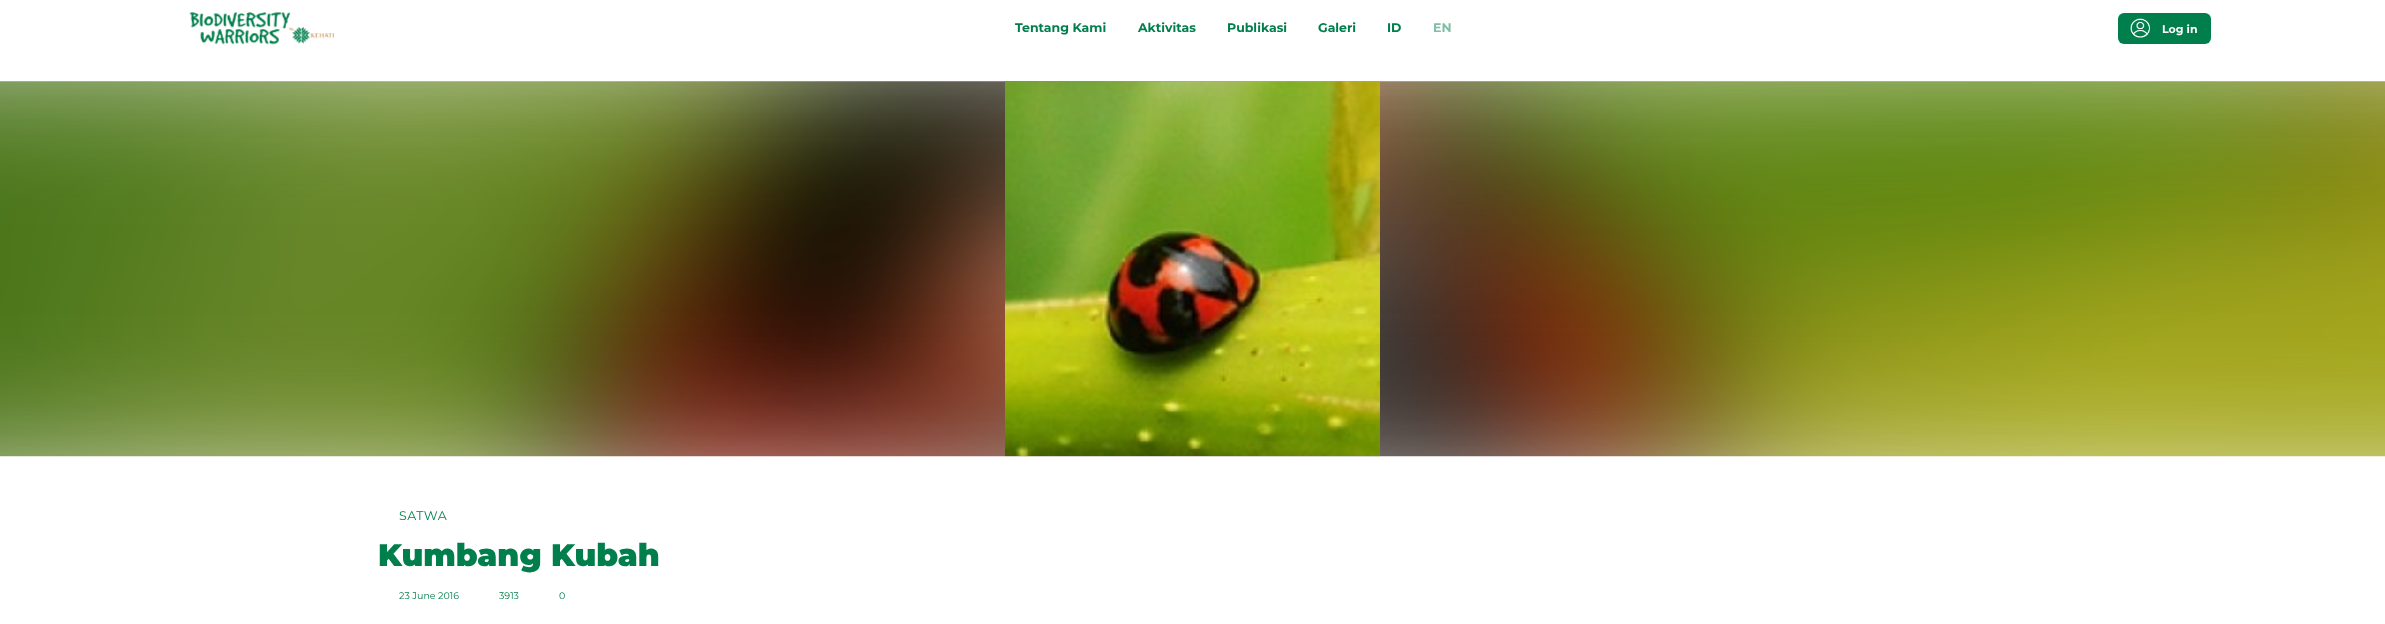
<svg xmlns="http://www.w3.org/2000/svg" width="2385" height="624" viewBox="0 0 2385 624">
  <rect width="100%" height="100%" fill="rgb(255,255,255)"/>
  <image x="189" y="12" width="145" height="33" href="pic1.png"/>
  <g font-family="Montserrat" font-size="12.5" font-weight="bold" fill="rgb(0,126,76)">
    <text x="1015" y="32">Tentang Kami</text>
    <text x="1138" y="32">Aktivitas</text>
    <text x="1227" y="32">Publikasi</text>
    <text x="1318" y="32">Galeri</text>
    <text x="1387" y="32">ID</text>
  </g>
  <text x="1433" y="32" font-family="Montserrat" font-size="12.5" font-weight="bold" fill="rgb(128,191,166)">EN</text>
  <rect x="2118" y="13" width="93" height="31" rx="6" fill="rgb(0,126,76)"/>
  <image x="2130" y="18" width="20" height="20" href="pic2.png"/>
  <text x="2162" y="33" font-family="Montserrat" font-size="11" font-weight="bold" fill="rgb(255,255,255)">Log in</text>
  <rect x="0" y="81" width="2385" height="375" fill="rgb(246,246,246)"/>
  <image x="0" y="81" width="2385" height="376" href="pic3.png"/>
  <image x="1005" y="81" width="375" height="376" href="pic4.png"/>
  <text x="399" y="520" font-family="Montserrat" font-size="12.5" letter-spacing="0.5" fill="rgb(0,126,76)">SATWA</text>
  <text x="378" y="566" font-family="Montserrat" font-size="31.25" font-weight="900" fill="rgb(0,126,76)">Kumbang Kubah</text>
  <g font-family="Montserrat" font-size="9.5" fill="rgb(0,126,76)">
    <text x="399" y="599">23 June 2016</text>
    <text x="499" y="599">3913</text>
    <text x="559" y="599">0</text>
  </g>
</svg>
